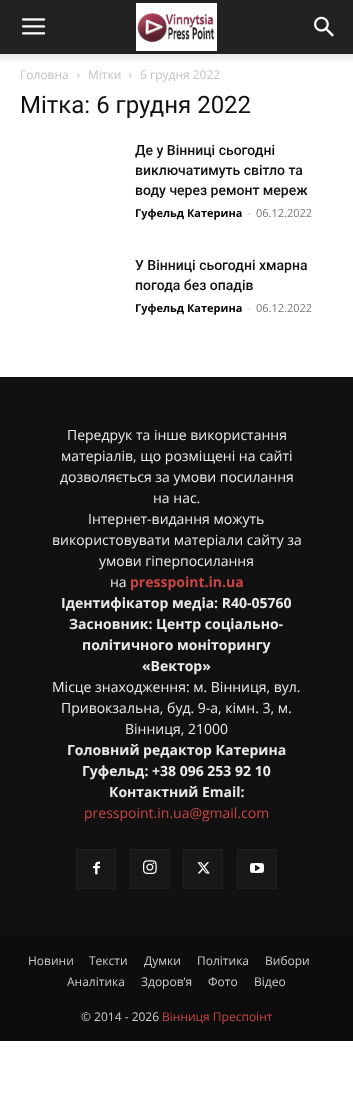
<svg xmlns="http://www.w3.org/2000/svg" width="353" height="1104" viewBox="0 0 353 1104">
  <rect width="100%" height="100%" fill="rgb(255,255,255)"/>
  <rect x="0" y="0" width="353" height="54" fill="rgb(34,34,34)"/>
  <image x="22" y="18" width="24" height="17" href="pic1.png"/>
  <image x="136" y="3" width="81" height="48" href="pic2.png"/>
  <image x="314" y="16" width="20" height="21" href="pic3.png"/>
  <image x="0" y="54" width="353" height="9" href="pic4.png"/>
  <text x="20" y="79" font-family="Open Sans" font-size="12" fill="rgb(195,195,195)">Головна</text>
  <image x="77" y="73" width="3" height="5" href="pic5.png"/>
  <text x="88" y="79" font-family="Open Sans" font-size="12" fill="rgb(195,195,195)">Мітки</text>
  <image x="129" y="73" width="3" height="5" href="pic5.png"/>
  <text x="140" y="79" font-family="Open Sans" font-size="12" fill="rgb(195,195,195)">6 грудня 2022</text>
  <text x="20" y="113" font-family="Roboto" font-size="24" fill="rgb(17,17,17)">Мітка: 6 грудня 2022</text>
  <g font-family="Roboto" font-size="14" font-weight="500" fill="rgb(17,17,17)">
    <text>
      <tspan x="135" y="155">Де у Вінниці сьогодні</tspan>
      <tspan x="135" y="175">виключатимуть світло та</tspan>
      <tspan x="135" y="195">воду через ремонт мереж</tspan>
    </text>
  </g>
  <text x="135" y="217" font-family="Open Sans" font-size="11" font-weight="bold" fill="rgb(0,0,0)">Гуфельд Катерина</text>
  <text x="247" y="217" font-family="Open Sans" font-size="11" fill="rgb(204,204,204)">-</text>
  <text x="256" y="217" font-family="Open Sans" font-size="11" fill="rgb(118,118,118)">06.12.2022</text>
  <g font-family="Roboto" font-size="14" font-weight="500" fill="rgb(17,17,17)">
    <text>
      <tspan x="135" y="270">У Вінниці сьогодні хмарна</tspan>
      <tspan x="135" y="290">погода без опадів</tspan>
    </text>
  </g>
  <text x="135" y="312" font-family="Open Sans" font-size="11" font-weight="bold" fill="rgb(0,0,0)">Гуфельд Катерина</text>
  <text x="247" y="312" font-family="Open Sans" font-size="11" fill="rgb(204,204,204)">-</text>
  <text x="256" y="312" font-family="Open Sans" font-size="11" fill="rgb(118,118,118)">06.12.2022</text>
  <rect x="0" y="377" width="353" height="560" fill="rgb(17,17,17)"/>
  <g font-family="Open Sans" font-size="14" fill="rgb(234,234,234)">
    <text x="67" y="440">Передрук та інше використання</text>
    <text x="61" y="461">матеріалів, що розміщені на сайті</text>
    <text x="60" y="482">дозволяється за умови посилання</text>
    <text x="153" y="503">на нас.</text>
    <text x="88" y="524">Інтернет-видання можуть</text>
    <text x="52" y="545">використовувати матеріали сайту за</text>
    <text x="99" y="566">умови гіперпосилання</text>
    <text x="110" y="587">на</text>
  </g>
  <text x="130" y="587" font-family="Open Sans" font-size="14" font-weight="bold" fill="rgb(202,69,69)">presspoint.in.ua</text>
  <g font-family="Open Sans" font-size="14" font-weight="bold" fill="rgb(234,234,234)">
    <text x="61" y="608">Ідентифікатор медіа: R40-05760</text>
    <text x="69" y="629">Засновник: Центр соціально-</text>
    <text x="82" y="650">політичного моніторингу</text>
    <text x="142" y="671">«Вектор»</text>
  </g>
  <g font-family="Open Sans" font-size="14" fill="rgb(234,234,234)">
    <text x="52" y="692">Місце знаходження: м. Вінниця, вул.</text>
    <text x="61" y="713">Привокзальна, буд. 9-а, кімн. 3, м.</text>
    <text x="125" y="734">Вінниця, 21000</text>
  </g>
  <g font-family="Open Sans" font-size="14" font-weight="bold" fill="rgb(234,234,234)">
    <text x="67" y="755">Головний редактор Катерина</text>
    <text x="82" y="776">Гуфельд: +38 096 253 92 10</text>
    <text x="109" y="797">Контактний Email:</text>
  </g>
  <text x="84" y="818" font-family="Open Sans" font-size="14" fill="rgb(202,69,69)">presspoint.in.ua@gmail.com</text>
  <rect x="77" y="850" width="38" height="38" fill="rgb(24,24,24)"/>
  <image x="93" y="861" width="7" height="14" href="pic6.png"/>
  <rect x="76.5" y="849.5" width="39" height="39" fill="none" stroke="rgb(31,31,31)"/>
  <rect x="131" y="850" width="38" height="38" fill="rgb(24,24,24)"/>
  <image x="143" y="860" width="14" height="14" href="pic7.png"/>
  <rect x="130.5" y="849.5" width="39" height="39" fill="none" stroke="rgb(31,31,31)"/>
  <rect x="184" y="850" width="38" height="38" fill="rgb(24,24,24)"/>
  <image x="197" y="862" width="13" height="12" href="pic8.png"/>
  <rect x="183.5" y="849.5" width="39" height="39" fill="none" stroke="rgb(31,31,31)"/>
  <rect x="238" y="850" width="38" height="38" fill="rgb(24,24,24)"/>
  <image x="250" y="863" width="14" height="10" href="pic9.png"/>
  <rect x="237.5" y="849.5" width="39" height="39" fill="none" stroke="rgb(31,31,31)"/>
  <rect x="0" y="937" width="353" height="104" fill="rgb(13,13,13)"/>
  <g font-family="Open Sans" font-size="12" fill="rgb(204,204,204)">
    <text x="28" y="965">Новини</text>
    <text x="89" y="965">Тексти</text>
    <text x="144" y="965">Думки</text>
    <text x="197" y="965">Політика</text>
    <text x="265" y="965">Вибори</text>
    <text x="67" y="986">Аналітика</text>
    <text x="141" y="986">Здоров’я</text>
    <text x="208" y="986">Фото</text>
    <text x="254" y="986">Відео</text>
    <text x="81" y="1021">© 2014 - 2026</text>
  </g>
  <text x="162" y="1021" font-family="Open Sans" font-size="12" fill="rgb(202,69,69)">Вінниця Преспоінт</text>
</svg>
